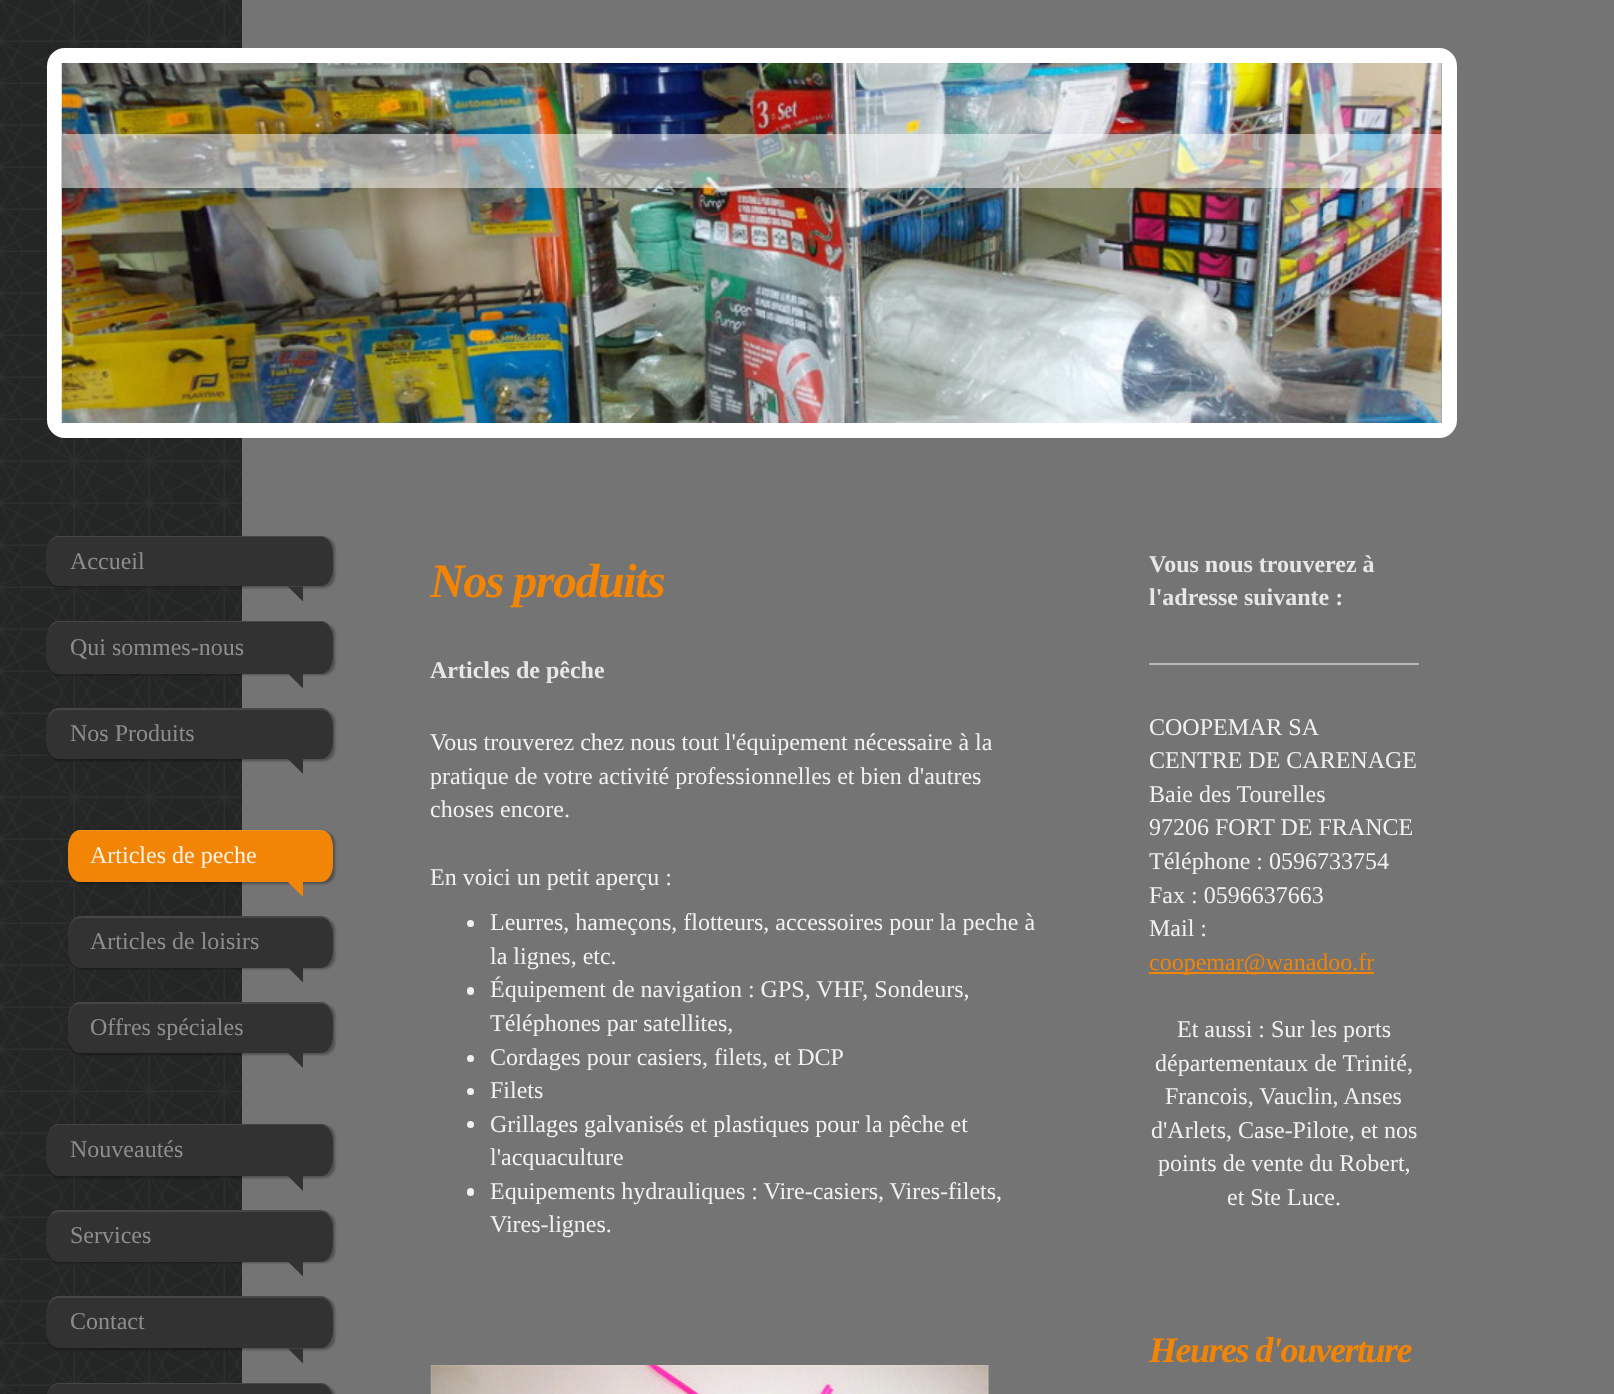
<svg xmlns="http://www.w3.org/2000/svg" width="1614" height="1394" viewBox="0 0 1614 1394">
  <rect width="100%" height="100%" fill="rgb(36,37,37)"/>
  <image x="0" y="0" width="242" height="1394" href="pic1.png"/>
  <rect x="242" y="0" width="1372" height="1394" fill="rgb(116,116,116)"/>
  <rect x="54.5" y="55.5" width="1395" height="375" rx="10.5" fill="none" stroke="rgb(255,255,255)" stroke-width="15"/>
  <rect x="1441" y="63" width="1" height="360" fill="rgb(160,160,160)"/>
  <image x="61" y="63" width="1381" height="360" href="pic2.png"/>
  <rect x="62" y="134" width="1380" height="54" fill="rgba(255,255,255,0.5)"/>
  <rect x="48" y="537" width="287" height="51" rx="12" fill="rgba(0,0,0,0.3)" filter="blur(1px)"/>
  <path d="M58 536H321C328 536 333 544 333 554V568C333 578 328 586 321 586H58C52 586 46 578 46 568V554C46 544 52 536 58 536Z" fill="rgb(51,50,50)"/>
  <path d="M58 537H321C328 537 333 545 333 555V554C333 544 328 536 321 536H58C53 536 49 540 47 547C49 541 54 537 58 537Z" fill="rgba(255,255,255,0.1)"/>
  <text x="70" y="569" font-family="Liberation Serif" font-size="24" fill="rgb(143,141,141)">Accueil</text>
  <path d="M288 586.5H303V601.5Z" fill="rgb(51,50,50)"/>
  <rect x="48" y="623" width="287" height="52" rx="12" fill="rgba(0,0,0,0.3)" filter="blur(1px)"/>
  <path d="M58 621H321C328 621 333 629 333 639V656C333 665 328 674 321 674H58C52 674 46 665 46 656V639C46 629 52 621 58 621Z" fill="rgb(51,50,50)"/>
  <path d="M58 622H321C328 622 333 631 333 640V639C333 629 328 621 321 621H58C53 621 49 626 47 633C49 627 54 622 58 622Z" fill="rgba(255,255,255,0.1)"/>
  <text x="70" y="655" font-family="Liberation Serif" font-size="24" fill="rgb(143,141,141)">Qui sommes-nous</text>
  <path d="M288 673.5H303V688.5Z" fill="rgb(51,50,50)"/>
  <rect x="48" y="710" width="287" height="51" rx="12" fill="rgba(0,0,0,0.3)" filter="blur(1px)"/>
  <path d="M58 708H321C328 708 333 716 333 726V741C333 751 328 759 321 759H58C52 759 46 751 46 741V726C46 716 52 708 58 708Z" fill="rgb(51,50,50)"/>
  <path d="M58 710H321C328 710 333 718 333 728V726C333 716 328 708 321 708H58C53 708 48 714 47 721C49 715 53 710 58 710Z" fill="rgba(255,255,255,0.1)"/>
  <text x="70" y="741" font-family="Liberation Serif" font-size="24" fill="rgb(143,141,141)">Nos Produits</text>
  <path d="M288 759H303V774Z" fill="rgb(51,50,50)"/>
  <rect x="69" y="831" width="266" height="53" rx="12" fill="rgba(0,0,0,0.3)" filter="blur(1px)"/>
  <path d="M80 830H321C328 830 333 838 333 848V864C333 874 328 882 321 882H80C73 882 68 874 68 864V848C68 838 73 830 80 830Z" fill="rgb(242,133,5)"/>
  <path d="M80 831H321C328 831 333 839 333 849V848C333 838 328 830 321 830H80C73 830 68 838 68 848V864C68 867 68 869 69 872C68 867 68 862 68 858C68 849 67 831 80 831Z" fill="rgba(255,255,255,0.1)"/>
  <text x="90" y="863" font-family="Liberation Serif" font-size="24" fill="rgb(254,243,230)">Articles de peche</text>
  <path d="M288 882H303V897Z" fill="rgb(242,133,5)"/>
  <rect x="69" y="918" width="266" height="51" rx="12" fill="rgba(0,0,0,0.3)" filter="blur(1px)"/>
  <path d="M80 916H321C328 916 333 925 333 934V950C333 959 328 968 321 968H80C73 968 68 959 68 950V934C68 925 73 916 80 916Z" fill="rgb(51,50,50)"/>
  <path d="M80 918H321C328 918 333 926 333 936V934C333 925 328 916 321 916H80C73 916 68 925 68 934V950C68 952 68 955 69 958C68 953 68 948 68 944C68 935 68 918 80 918Z" fill="rgba(255,255,255,0.1)"/>
  <text x="90" y="949" font-family="Liberation Serif" font-size="24" fill="rgb(143,141,141)">Articles de loisirs</text>
  <path d="M288 967.5H303V982.5Z" fill="rgb(51,50,50)"/>
  <rect x="69" y="1004" width="266" height="51" rx="12" fill="rgba(0,0,0,0.3)" filter="blur(1px)"/>
  <path d="M80 1002H321C328 1002 333 1010 333 1020V1035C333 1045 328 1053 321 1053H80C73 1053 68 1045 68 1035V1020C68 1010 73 1002 80 1002Z" fill="rgb(51,50,50)"/>
  <path d="M80 1004H321C328 1004 333 1012 333 1022V1020C333 1010 328 1002 321 1002H80C73 1002 68 1010 68 1020V1035C68 1039 68 1042 69 1045C68 1040 68 1034 68 1029C68 1021 68 1004 80 1004Z" fill="rgba(255,255,255,0.1)"/>
  <text x="90" y="1035" font-family="Liberation Serif" font-size="24" fill="rgb(143,141,141)">Offres spéciales</text>
  <path d="M288 1053H303V1068Z" fill="rgb(51,50,50)"/>
  <rect x="48" y="1125" width="287" height="53" rx="12" fill="rgba(0,0,0,0.3)" filter="blur(1px)"/>
  <path d="M58 1124H321C328 1124 333 1132 333 1142V1158C333 1168 328 1176 321 1176H58C52 1176 46 1168 46 1158V1142C46 1132 52 1124 58 1124Z" fill="rgb(51,50,50)"/>
  <path d="M58 1125H321C328 1125 333 1133 333 1143V1142C333 1132 328 1124 321 1124H58C53 1124 49 1128 47 1135C49 1129 54 1125 58 1125Z" fill="rgba(255,255,255,0.1)"/>
  <text x="70" y="1157" font-family="Liberation Serif" font-size="24" fill="rgb(143,141,141)">Nouveautés</text>
  <path d="M288 1176H303V1191Z" fill="rgb(51,50,50)"/>
  <rect x="48" y="1212" width="287" height="51" rx="12" fill="rgba(0,0,0,0.3)" filter="blur(1px)"/>
  <path d="M58 1210H321C328 1210 333 1219 333 1228V1244C333 1253 328 1262 321 1262H58C52 1262 46 1253 46 1244V1228C46 1219 52 1210 58 1210Z" fill="rgb(51,50,50)"/>
  <path d="M58 1212H321C328 1212 333 1220 333 1230V1228C333 1219 328 1210 321 1210H58C53 1210 49 1215 47 1222C49 1216 54 1212 58 1212Z" fill="rgba(255,255,255,0.1)"/>
  <text x="70" y="1243" font-family="Liberation Serif" font-size="24" fill="rgb(143,141,141)">Services</text>
  <path d="M288 1261.5H303V1276.5Z" fill="rgb(51,50,50)"/>
  <rect x="48" y="1298" width="287" height="52" rx="12" fill="rgba(0,0,0,0.3)" filter="blur(1px)"/>
  <path d="M58 1296H321C328 1296 333 1304 333 1314V1330C333 1340 328 1348 321 1348H58C52 1348 46 1340 46 1330V1314C46 1304 52 1296 58 1296Z" fill="rgb(51,50,50)"/>
  <path d="M58 1298H321C328 1298 333 1306 333 1316V1314C333 1304 328 1296 321 1296H58C53 1296 48 1302 47 1309C49 1303 53 1298 58 1298Z" fill="rgba(255,255,255,0.1)"/>
  <text x="70" y="1329" font-family="Liberation Serif" font-size="24" fill="rgb(143,141,141)">Contact</text>
  <path d="M288 1348.5H303V1363.5Z" fill="rgb(51,50,50)"/>
  <rect x="48" y="1385" width="287" height="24" rx="12" fill="rgba(0,0,0,0.3)" filter="blur(1px)"/>
  <path d="M58 1383H321C328 1383 333 1391 333 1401V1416C333 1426 328 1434 321 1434H58C52 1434 46 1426 46 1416V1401C46 1391 52 1383 58 1383Z" fill="rgb(51,50,50)"/>
  <path d="M58 1384H321C328 1384 333 1393 333 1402V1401C333 1391 328 1383 321 1383H58C53 1383 49 1388 47 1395C49 1389 54 1384 58 1384Z" fill="rgba(255,255,255,0.1)"/>
  <text x="430" y="597" font-family="Liberation Serif" font-size="48" font-weight="bold" font-style="italic" letter-spacing="-1.5" fill="rgb(242,133,5)">Nos produits</text>
  <text x="430" y="678" font-family="Liberation Serif" font-size="24" font-weight="bold" fill="rgb(231,231,231)">Articles de pêche</text>
  <g font-family="Liberation Serif" font-size="24" fill="rgb(241,241,241)">
    <text>
      <tspan x="430" y="750">Vous trouverez chez nous tout l'équipement nécessaire à la</tspan>
      <tspan x="430" y="784">pratique de votre activité professionnelles et bien d'autres</tspan>
      <tspan x="430" y="817">choses encore.</tspan>
    </text>
    <text x="430" y="885">En voici un petit aperçu :</text>
  </g>
  <circle cx="470.5" cy="923.5" r="3.5" fill="rgb(241,241,241)"/>
  <g font-family="Liberation Serif" font-size="24" fill="rgb(241,241,241)">
    <text>
      <tspan x="490" y="930">Leurres, hameçons, flotteurs, accessoires pour la peche à</tspan>
      <tspan x="490" y="964">la lignes, etc.</tspan>
    </text>
  </g>
  <rect x="467" y="987" width="7" height="8" rx="3.5" fill="rgb(241,241,241)"/>
  <g font-family="Liberation Serif" font-size="24" fill="rgb(241,241,241)">
    <text>
      <tspan x="490" y="997">Équipement de navigation : GPS, VHF, Sondeurs,</tspan>
      <tspan x="490" y="1031">Téléphones par satellites,</tspan>
    </text>
  </g>
  <circle cx="470.5" cy="1058.5" r="3.5" fill="rgb(241,241,241)"/>
  <text x="490" y="1065" font-family="Liberation Serif" font-size="24" fill="rgb(241,241,241)">Cordages pour casiers, filets, et DCP</text>
  <circle cx="470.5" cy="1091.5" r="3.5" fill="rgb(241,241,241)"/>
  <text x="490" y="1098" font-family="Liberation Serif" font-size="24" fill="rgb(241,241,241)">Filets</text>
  <circle cx="470.5" cy="1124.5" r="3.5" fill="rgb(241,241,241)"/>
  <g font-family="Liberation Serif" font-size="24" fill="rgb(241,241,241)">
    <text>
      <tspan x="490" y="1132">Grillages galvanisés et plastiques pour la pêche et</tspan>
      <tspan x="490" y="1165">l'acquaculture</tspan>
    </text>
  </g>
  <rect x="467" y="1188" width="7" height="8" rx="3.5" fill="rgb(241,241,241)"/>
  <g font-family="Liberation Serif" font-size="24" fill="rgb(241,241,241)">
    <text>
      <tspan x="490" y="1199">Equipements hydrauliques : Vire-casiers, Vires-filets,</tspan>
      <tspan x="490" y="1232">Vires-lignes.</tspan>
    </text>
  </g>
  <image x="430" y="1365" width="559" height="29" href="pic3.png"/>
  <g font-family="Liberation Serif" font-size="24" font-weight="bold" fill="rgb(231,231,231)">
    <text>
      <tspan x="1149" y="572">Vous nous trouverez à</tspan>
      <tspan x="1149" y="605">l'adresse suivante :</tspan>
    </text>
  </g>
  <rect x="1149" y="663" width="270" height="2" fill="rgb(185,185,185)"/>
  <g font-family="Liberation Serif" font-size="24" fill="rgb(241,241,241)">
    <text>
      <tspan x="1149" y="735">COOPEMAR SA</tspan>
      <tspan x="1149" y="768">CENTRE DE CARENAGE</tspan>
      <tspan x="1149" y="802">Baie des Tourelles</tspan>
      <tspan x="1149" y="835">97206 FORT DE FRANCE</tspan>
      <tspan x="1149" y="869">Téléphone : 0596733754</tspan>
      <tspan x="1149" y="903">Fax : 0596637663</tspan>
      <tspan x="1149" y="936">Mail :</tspan>
    </text>
  </g>
  <rect x="1149" y="972" width="225" height="2" fill="rgb(242,133,5)"/>
  <text x="1149" y="970" font-family="Liberation Serif" font-size="24" fill="rgb(242,133,5)">coopemar@wanadoo.fr</text>
  <g font-family="Liberation Serif" font-size="24" fill="rgb(241,241,241)">
    <text x="1177" y="1037">Et aussi : Sur les ports</text>
    <text x="1155" y="1071">départementaux de Trinité,</text>
    <text x="1165" y="1104">Francois, Vauclin, Anses</text>
    <text x="1151" y="1138">d'Arlets, Case-Pilote, et nos</text>
    <text x="1158" y="1171">points de vente du Robert,</text>
    <text x="1227" y="1205">et Ste Luce.</text>
  </g>
  <text x="1149" y="1362" font-family="Liberation Serif" font-size="36" font-weight="bold" font-style="italic" letter-spacing="-1.5" fill="rgb(242,133,5)">Heures d'ouverture</text>
</svg>
